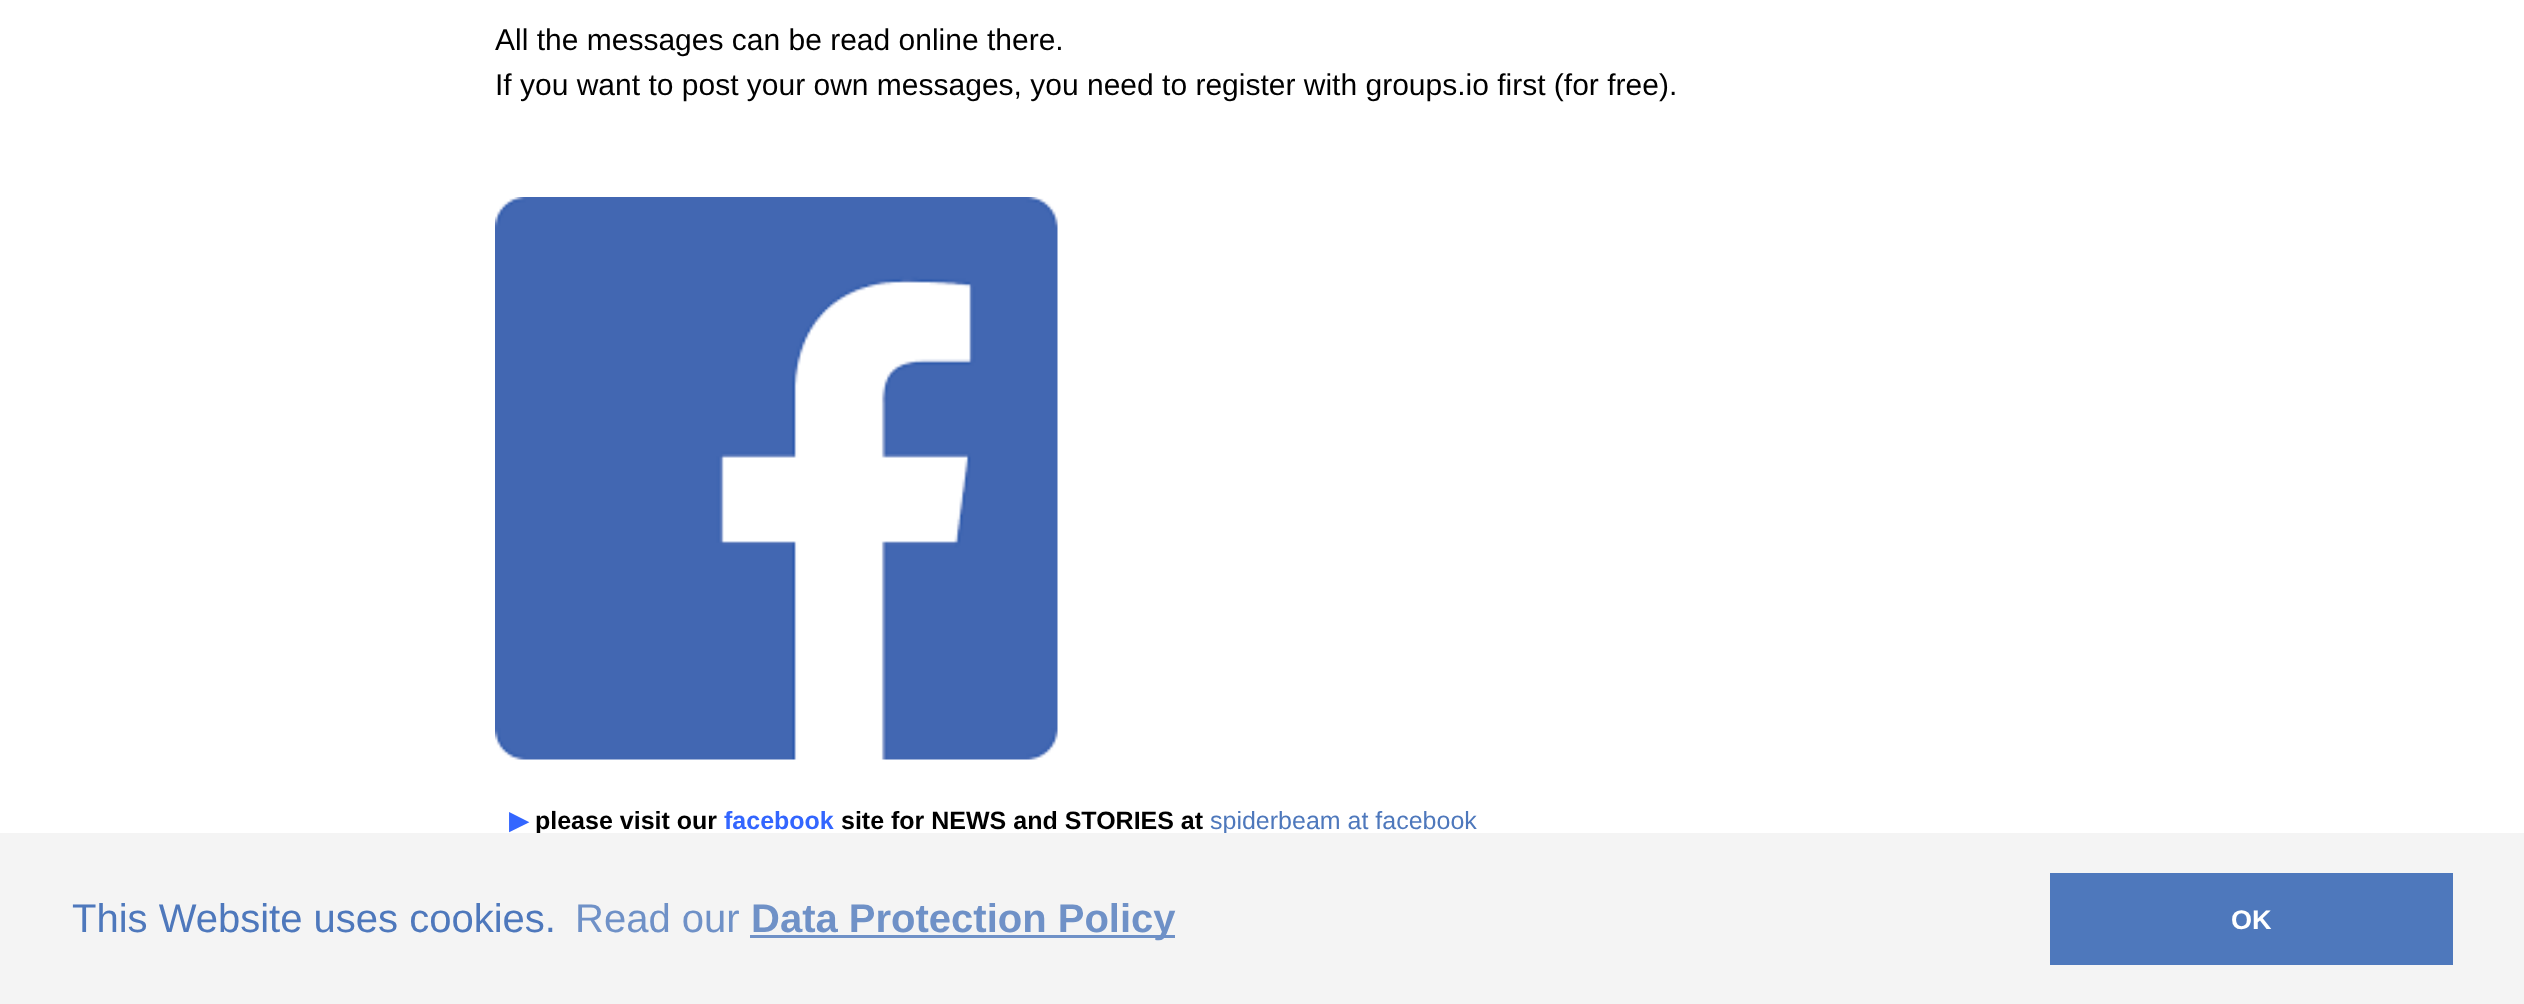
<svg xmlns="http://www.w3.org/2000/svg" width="2524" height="1004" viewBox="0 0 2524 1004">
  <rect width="100%" height="100%" fill="rgb(255,255,255)"/>
  <g font-family="Liberation Sans" font-size="30" fill="rgb(0,0,0)">
    <text>
      <tspan x="495" y="50">All the messages can be read online there.</tspan>
      <tspan x="495" y="95">If you want to post your own messages, you need to register with groups.io first (for free).</tspan>
    </text>
  </g>
  <image x="495" y="197" width="563" height="563" href="pic1.png"/>
  <text x="509" y="829" font-family="DejaVu Sans" font-size="25" font-weight="bold" fill="rgb(51,102,255)">▶</text>
  <text x="535" y="829" font-family="Liberation Sans" font-size="25" font-weight="bold" fill="rgb(0,0,0)">please visit our</text>
  <text x="724" y="829" font-family="Liberation Sans" font-size="25" font-weight="bold" fill="rgb(51,102,255)">facebook</text>
  <text x="841" y="829" font-family="Liberation Sans" font-size="25" font-weight="bold" fill="rgb(0,0,0)">site for NEWS and STORIES at</text>
  <text x="1210" y="829" font-family="Liberation Sans" font-size="25" fill="rgb(78,120,188)">spiderbeam at facebook</text>
  <rect x="0" y="833" width="2524" height="171" fill="rgb(244,244,244)"/>
  <text x="72" y="932" font-family="Liberation Sans" font-size="40" fill="rgb(78,120,188)">This Website uses cookies.</text>
  <text x="575" y="932" font-family="Liberation Sans" font-size="40" fill="rgb(111,145,199)">Read our</text>
  <rect x="750" y="935" width="425" height="3" fill="rgb(111,145,199)"/>
  <text x="751" y="932" font-family="Liberation Sans" font-size="40" font-weight="bold" fill="rgb(111,145,199)">Data Protection Policy</text>
  <rect x="2050" y="873" width="403" height="92" fill="rgb(78,120,188)"/>
  <text x="2231" y="929" font-family="Liberation Sans" font-size="27" font-weight="bold" fill="rgb(255,255,255)">OK</text>
</svg>
